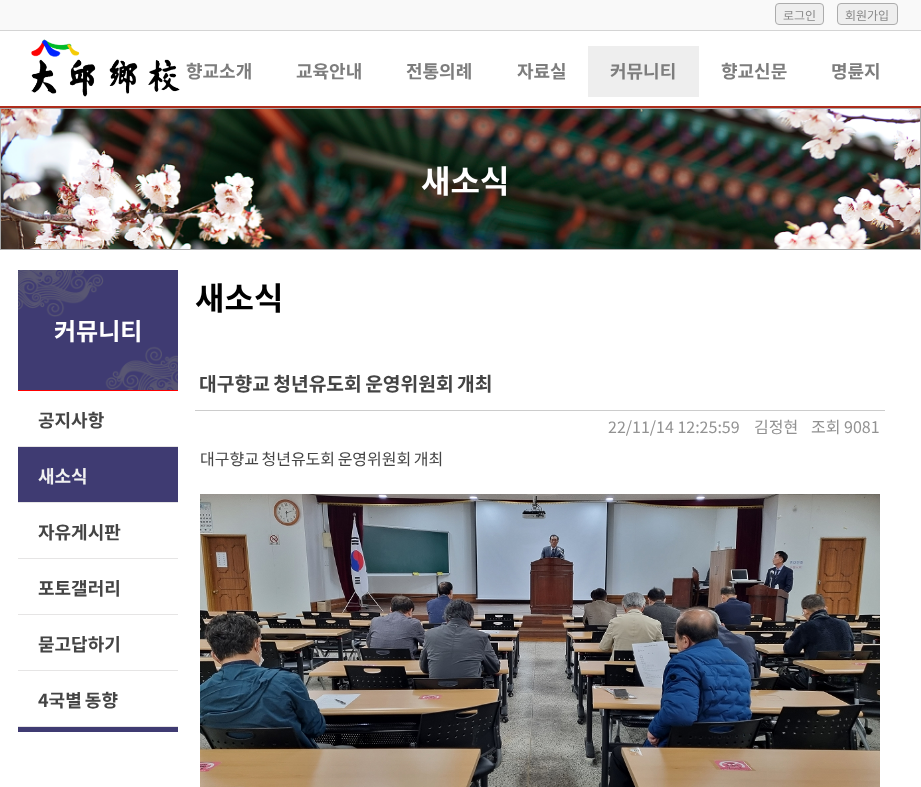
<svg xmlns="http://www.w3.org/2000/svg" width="921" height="787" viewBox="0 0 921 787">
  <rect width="100%" height="100%" fill="rgb(255,255,255)"/>
  <rect x="0" y="106" width="921" height="2" fill="rgb(174,44,27)"/>
  <rect x="0" y="0" width="921" height="30" fill="rgb(249,249,249)"/>
  <rect x="0" y="30" width="921" height="1" fill="rgb(212,212,212)"/>
  <rect x="775.5" y="3.5" width="48" height="21" rx="3.5" fill="rgb(238,238,238)" stroke="rgb(172,172,172)"/>
  <text x="783" y="20" font-family="Noto Sans KR" font-size="12" fill="rgb(136,136,136)">로그인</text>
  <rect x="837.5" y="3.5" width="60" height="21" rx="3.5" fill="rgb(238,238,238)" stroke="rgb(172,172,172)"/>
  <text x="845" y="20" font-family="Noto Sans KR" font-size="12" fill="rgb(136,136,136)">회원가입</text>
  <image x="31" y="39" width="149" height="58" href="pic1.png"/>
  <g font-family="Noto Sans KR" font-size="18" font-weight="bold" fill="rgb(125,125,125)">
    <text x="186" y="78">향교소개</text>
    <text x="296" y="78">교육안내</text>
    <text x="406" y="78">전통의례</text>
    <text x="517" y="78">자료실</text>
  </g>
  <rect x="588" y="46" width="111" height="51" fill="rgb(238,238,238)"/>
  <g font-family="Noto Sans KR" font-size="18" font-weight="bold" fill="rgb(125,125,125)">
    <text x="610" y="78">커뮤니티</text>
    <text x="721" y="78">향교신문</text>
    <text x="831" y="78">명륜지</text>
  </g>
  <image x="1" y="109" width="919" height="140" href="pic2.png"/>
  <rect x="0.5" y="108.5" width="920" height="141" fill="none" stroke="rgb(170,170,170)"/>
  <text x="421" y="193" font-family="Noto Sans KR" font-size="32" font-weight="bold" fill="rgb(255,255,255)">새소식</text>
  <image x="18" y="270" width="160" height="120" href="pic3.png"/>
  <rect x="18" y="390" width="160" height="1" fill="rgb(255,0,0)"/>
  <text x="54" y="340" font-family="Noto Sans KR" font-size="24" font-weight="bold" fill="rgb(255,255,255)">커뮤니티</text>
  <rect x="18" y="727" width="160" height="5" fill="rgb(63,59,114)"/>
  <rect x="18" y="446" width="160" height="1" fill="rgb(230,229,229)"/>
  <text x="38" y="427" font-family="Noto Sans KR" font-size="18" font-weight="bold" fill="rgb(68,68,68)">공지사항</text>
  <rect x="18" y="447" width="160" height="55" fill="rgb(63,59,114)"/>
  <rect x="18" y="502" width="160" height="1" fill="rgb(230,229,229)"/>
  <text x="38" y="483" font-family="Noto Sans KR" font-size="18" font-weight="bold" fill="rgb(241,241,241)">새소식</text>
  <rect x="18" y="558" width="160" height="1" fill="rgb(230,229,229)"/>
  <text x="38" y="539" font-family="Noto Sans KR" font-size="18" font-weight="bold" fill="rgb(68,68,68)">자유게시판</text>
  <rect x="18" y="614" width="160" height="1" fill="rgb(230,229,229)"/>
  <text x="38" y="595" font-family="Noto Sans KR" font-size="18" font-weight="bold" fill="rgb(68,68,68)">포토갤러리</text>
  <rect x="18" y="670" width="160" height="1" fill="rgb(230,229,229)"/>
  <text x="38" y="651" font-family="Noto Sans KR" font-size="18" font-weight="bold" fill="rgb(68,68,68)">묻고답하기</text>
  <rect x="18" y="726" width="160" height="1" fill="rgb(230,229,229)"/>
  <text x="38" y="707" word-spacing="-1" font-family="Noto Sans KR" font-size="18" font-weight="bold" fill="rgb(68,68,68)">4국별 동향</text>
  <text x="195" y="310" font-family="Noto Sans KR" font-size="32" font-weight="bold" fill="rgb(0,0,0)">새소식</text>
  <text x="199" y="391" word-spacing="-1" font-family="Noto Sans KR" font-size="19.25" font-weight="bold" fill="rgb(68,68,68)">대구향교 청년유도회 운영위원회 개최</text>
  <rect x="195" y="410" width="690" height="1" fill="rgb(204,204,204)"/>
  <g font-family="Noto Sans KR" font-size="16" fill="rgb(146,146,146)">
    <text x="608" y="433">22/11/14 12:25:59</text>
    <text x="754" y="433">김정현</text>
    <text x="811" y="433">조회 9081</text>
  </g>
  <text x="200" y="465" word-spacing="-1" font-family="Noto Sans KR" font-size="16" fill="rgb(68,68,68)">대구향교 청년유도회 운영위원회 개최</text>
  <image x="200" y="494" width="680" height="293" href="pic4.png"/>
</svg>
